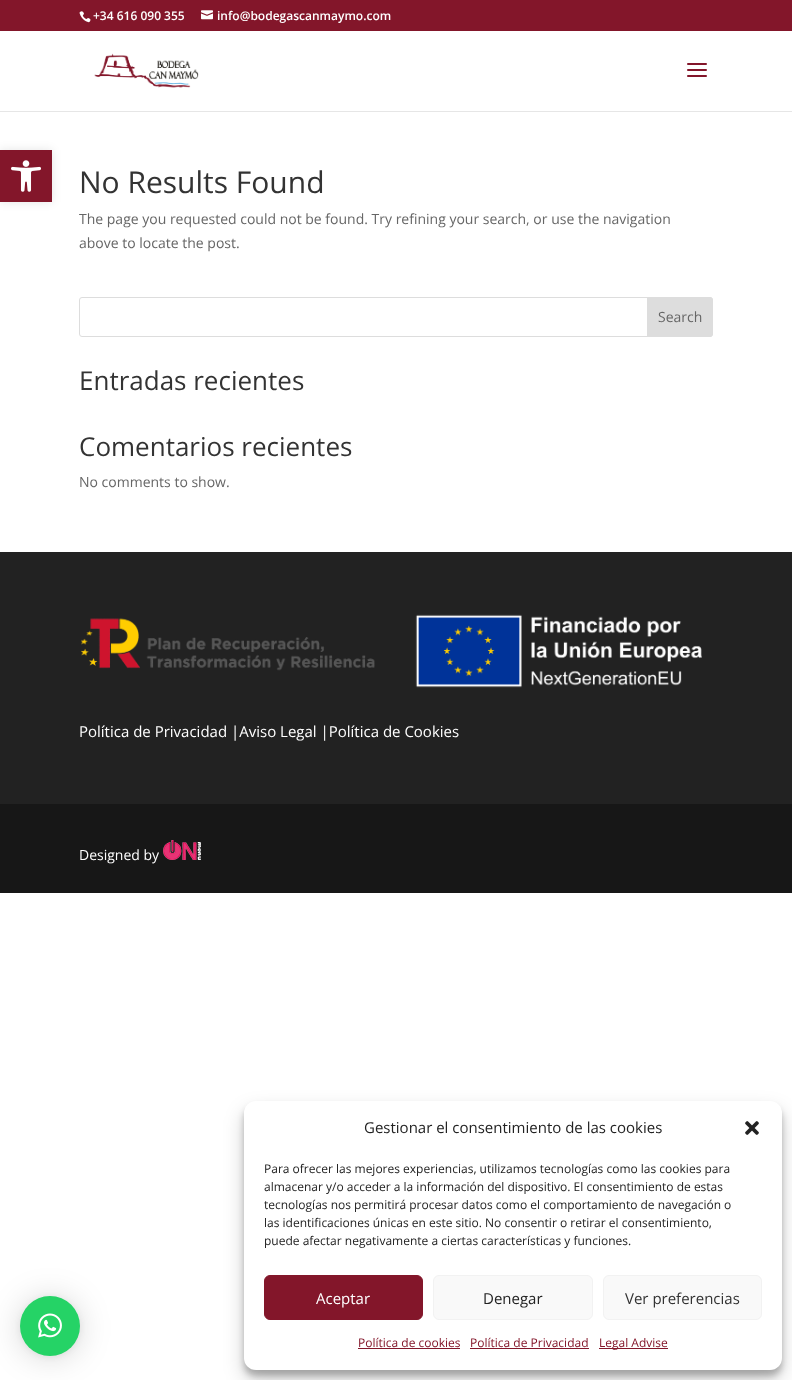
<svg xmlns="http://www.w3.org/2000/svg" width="792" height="1380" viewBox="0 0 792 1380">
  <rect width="100%" height="100%" fill="rgb(255,255,255)"/>
  <rect x="0" y="150" width="52" height="52" fill="rgba(0,0,0,0.1)" filter="blur(5px)"/>
  <rect x="0" y="150" width="52" height="52" fill="rgb(131,22,42)"/>
  <image x="11" y="160" width="30" height="32" href="pic1.png"/>
  <rect x="0" y="0" width="792" height="31" fill="rgb(131,22,42)"/>
  <image x="79" y="11" width="12" height="12" href="pic2.png"/>
  <text x="93" y="20" font-family="Open Sans" font-size="12" font-weight="600" fill="rgb(255,255,255)">+34 616 090 355</text>
  <image x="201" y="10" width="12" height="10" href="pic3.png"/>
  <text x="217" y="20" font-family="Open Sans" font-size="12" font-weight="600" fill="rgb(255,255,255)">info@bodegascanmaymo.com</text>
  <rect x="0" y="111" width="792" height="1" fill="rgb(230,230,230)"/>
  <image x="94" y="53" width="105" height="35" href="pic4.png"/>
  <image x="687" y="63" width="20" height="14" href="pic5.png"/>
  <text x="79" y="193" font-family="Open Sans" font-size="30" fill="rgb(51,51,51)">No Results Found</text>
  <g font-family="Open Sans" font-size="14" fill="rgb(102,102,102)">
    <text>
      <tspan x="79" y="224">The page you requested could not be found. Try refining your search, or use the navigation</tspan>
      <tspan x="79" y="248">above to locate the post.</tspan>
    </text>
  </g>
  <rect x="79.5" y="297.5" width="633" height="39" rx="2.5" fill="none" stroke="rgb(221,221,221)"/>
  <path d="M647.5 297.5H710C711.5 297.5 712.5 298.5 712.5 300V334C712.5 335.5 711.5 336.5 710 336.5H647.5Z" fill="rgb(221,221,221)" stroke="rgb(221,221,221)"/>
  <text x="658" y="322" font-family="Open Sans" font-size="14" fill="rgb(102,102,102)">Search</text>
  <g font-family="Open Sans" font-size="26" fill="rgb(51,51,51)">
    <text x="79" y="390">Entradas recientes</text>
    <text x="79" y="456">Comentarios recientes</text>
  </g>
  <text x="79" y="487" font-family="Open Sans" font-size="14" fill="rgb(102,102,102)">No comments to show.</text>
  <rect x="0" y="552" width="792" height="252" fill="rgb(34,34,34)"/>
  <image x="81" y="618" width="294" height="53" href="pic6.png"/>
  <image x="415" y="614" width="287" height="74" href="pic7.png"/>
  <text x="79" y="737" font-family="Open Sans" font-size="15" fill="rgb(255,255,255)">Política de Privacidad |Aviso Legal |Política de Cookies</text>
  <rect x="0" y="804" width="792" height="89" fill="rgb(23,23,23)"/>
  <text x="79" y="860" font-family="Open Sans" font-size="14" fill="rgb(255,255,255)">Designed by</text>
  <image x="163" y="840" width="38" height="20" href="pic8.png"/>
  <rect x="20" y="1298" width="60" height="60" rx="30" fill="rgba(0,0,0,0.16)" filter="blur(16px)"/>
  <rect x="20" y="1297" width="60" height="60" rx="30" fill="rgba(0,0,0,0.06)" filter="blur(3px)"/>
  <circle cx="50" cy="1326" r="30" fill="rgb(37,211,102)"/>
  <image x="38" y="1313" width="24" height="25" href="pic9.png"/>
  <rect x="244" y="1107" width="538" height="269" rx="12" fill="rgba(0,0,0,0.23)" filter="blur(3px)"/>
  <rect x="244" y="1111" width="538" height="269" rx="12" fill="rgba(0,0,0,0.19)" filter="blur(10px)"/>
  <rect x="244" y="1101" width="538" height="269" rx="12" fill="rgb(255,255,255)"/>
  <text x="364" y="1133" font-family="Open Sans" font-size="15" fill="rgb(34,34,34)">Gestionar el consentimiento de las cookies</text>
  <image x="745" y="1121" width="14" height="14" href="pic10.png"/>
  <g font-family="Open Sans" font-size="12" fill="rgb(34,34,34)">
    <text>
      <tspan x="264" y="1173">Para ofrecer las mejores experiencias, utilizamos tecnologías como las cookies para</tspan>
      <tspan x="264" y="1191">almacenar y/o acceder a la información del dispositivo. El consentimiento de estas</tspan>
      <tspan x="264" y="1209">tecnologías nos permitirá procesar datos como el comportamiento de navegación o</tspan>
      <tspan x="264" y="1227">las identificaciones únicas en este sitio. No consentir o retirar el consentimiento,</tspan>
      <tspan x="264" y="1245">puede afectar negativamente a ciertas características y funciones.</tspan>
    </text>
  </g>
  <rect x="264.5" y="1275.5" width="158" height="44" rx="5.5" fill="rgb(131,22,42)" stroke="rgb(131,22,42)"/>
  <text x="316" y="1304" font-family="Open Sans" font-size="15" fill="rgb(255,255,255)">Aceptar</text>
  <rect x="433.5" y="1275.5" width="159" height="44" rx="5.5" fill="rgb(249,249,249)" stroke="rgb(242,242,242)"/>
  <text x="483" y="1304" font-family="Open Sans" font-size="15" fill="rgb(34,34,34)">Denegar</text>
  <rect x="603.5" y="1275.5" width="158" height="44" rx="5.5" fill="rgb(249,249,249)" stroke="rgb(242,242,242)"/>
  <text x="625" y="1304" font-family="Open Sans" font-size="15" fill="rgb(51,51,51)">Ver preferencias</text>
  <text x="358" y="1347" font-family="Open Sans" font-size="12" fill="rgb(131,22,42)">Política de cookies</text>
  <rect x="358" y="1348" width="102" height="1" fill="rgb(131,22,42)"/>
  <text x="470" y="1347" font-family="Open Sans" font-size="12" fill="rgb(131,22,42)">Política de Privacidad</text>
  <rect x="470" y="1348" width="119" height="1" fill="rgb(131,22,42)"/>
  <rect x="599" y="1348" width="69" height="1" fill="rgb(131,22,42)"/>
  <text x="599" y="1347" font-family="Open Sans" font-size="12" fill="rgb(131,22,42)">Legal Advise</text>
</svg>
